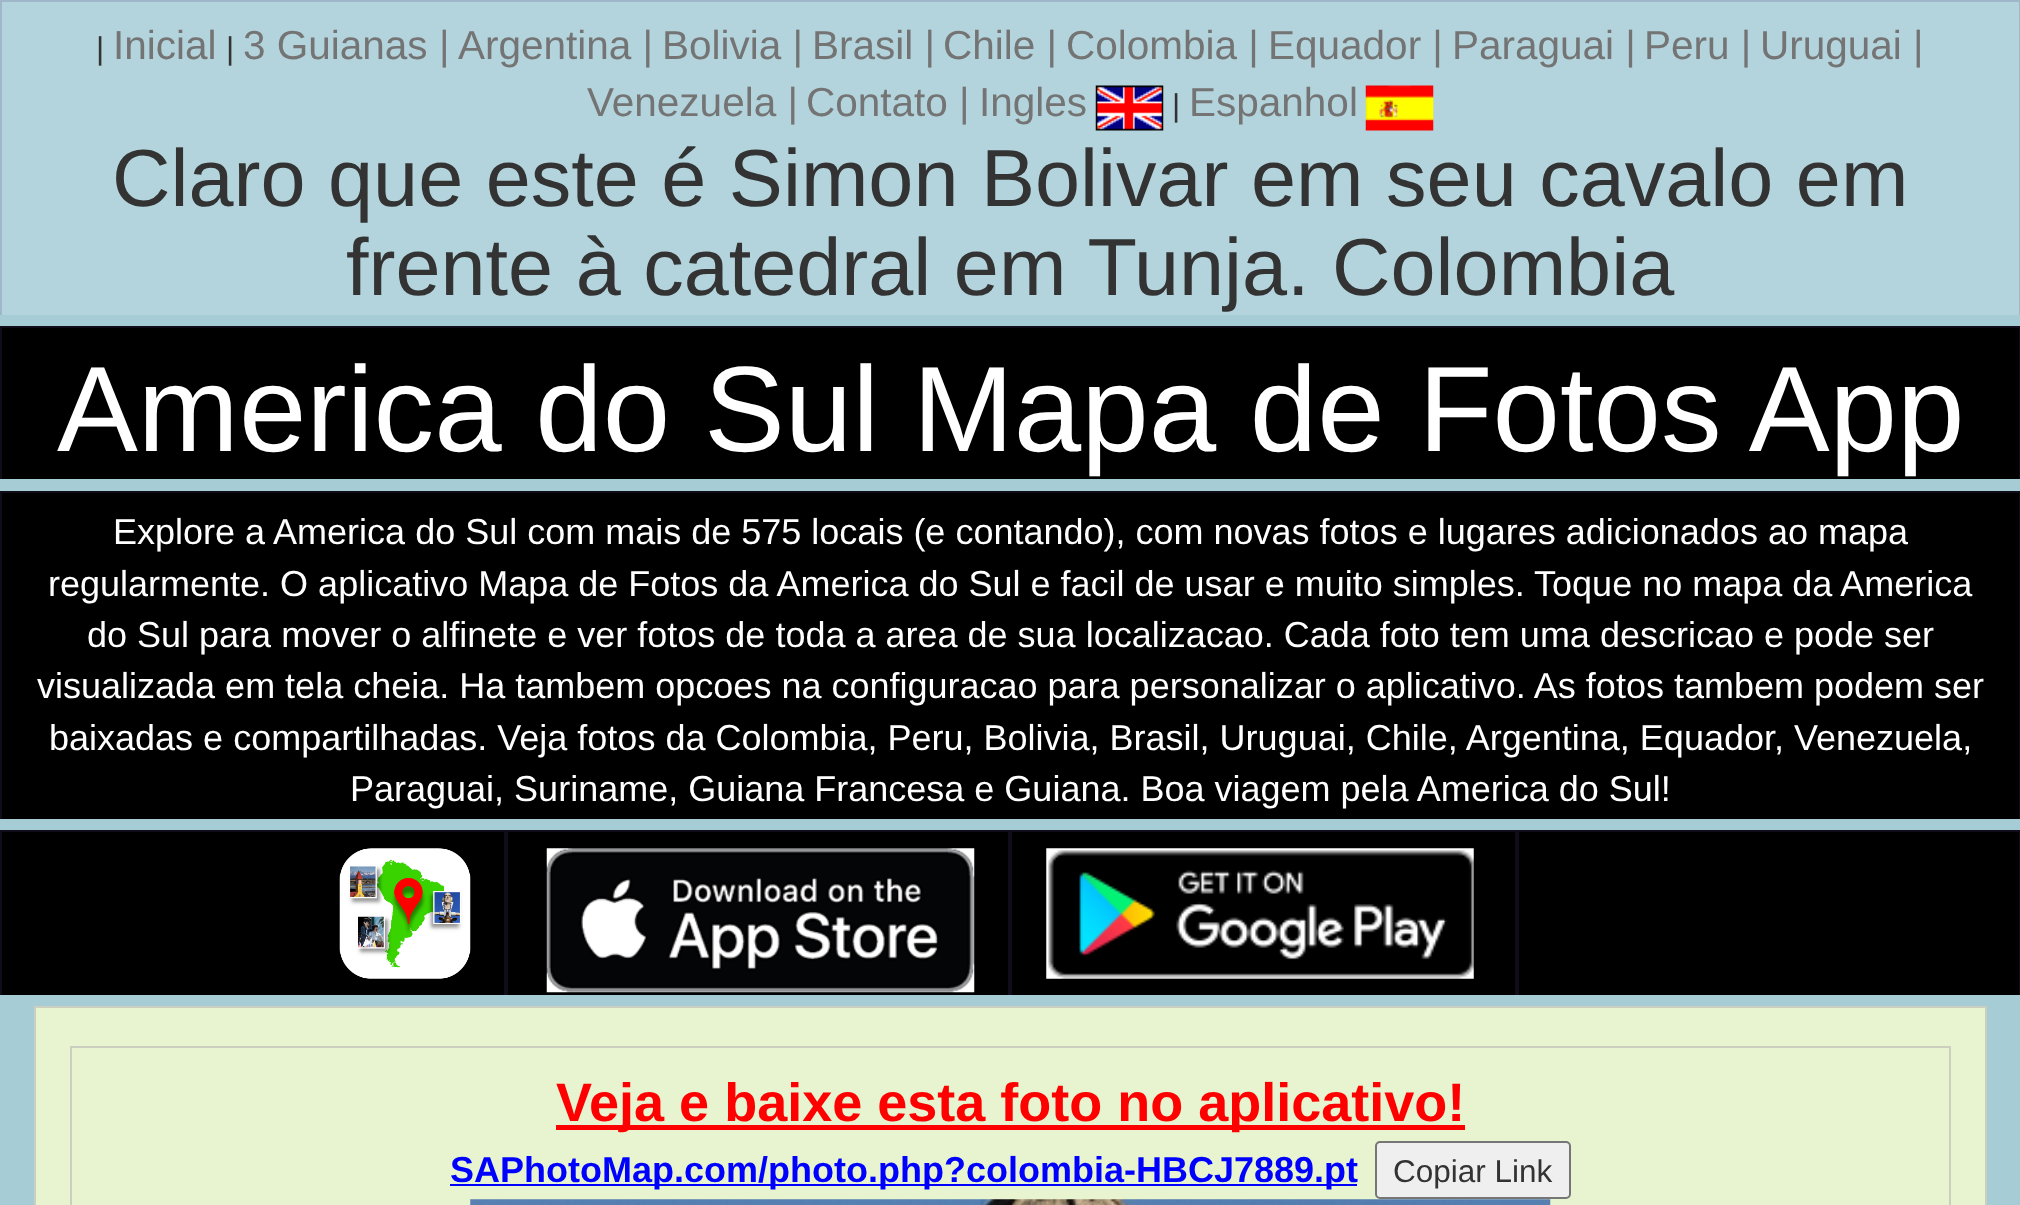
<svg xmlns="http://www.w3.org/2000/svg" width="2020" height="1205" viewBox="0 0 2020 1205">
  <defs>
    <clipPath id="clip1"><rect x="0" y="0" width="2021" height="315"/></clipPath>
    <clipPath id="clip2"><rect x="0" y="326" width="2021" height="153"/></clipPath>
    <clipPath id="clip3"><rect x="0" y="491" width="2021" height="328"/></clipPath>
    <clipPath id="clip4"><rect x="0" y="830" width="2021" height="165"/></clipPath>
  </defs>
  <rect width="100%" height="100%" fill="rgb(166,204,214)"/>
  <rect x="2" y="2" width="2017" height="313" fill="rgb(179,212,220)"/>
  <rect x="2" y="832" width="2017" height="163" fill="rgb(0,0,0)"/>
  <g clip-path="url(#clip1)">
    <rect x="1" y="1" width="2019" height="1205" fill="none" stroke="rgb(160,182,201)" stroke-width="2"/>
  </g>
  <text x="96" y="59" font-family="Liberation Sans" font-size="31.5" fill="rgb(51,51,51)">|</text>
  <text x="113" y="59" font-family="Liberation Sans" font-size="40.5" fill="rgb(116,116,116)">Inicial</text>
  <text x="226" y="59" font-family="Liberation Sans" font-size="31.5" fill="rgb(51,51,51)">|</text>
  <g font-family="Liberation Sans" font-size="40.5" fill="rgb(116,116,116)">
    <text x="243" y="59">3 Guianas |</text>
    <text x="458" y="59">Argentina |</text>
    <text x="662" y="59">Bolivia |</text>
    <text x="812" y="59">Brasil |</text>
    <text x="943" y="59">Chile |</text>
    <text x="1066" y="59">Colombia |</text>
    <text x="1268" y="59">Equador |</text>
    <text x="1452" y="59">Paraguai |</text>
    <text x="1644" y="59">Peru |</text>
    <text x="1760" y="59">Uruguai |</text>
    <text x="587" y="116">Venezuela |</text>
    <text x="806" y="116">Contato |</text>
    <text x="979" y="116">Ingles</text>
  </g>
  <image x="1095" y="85" width="69" height="46" href="pic1.png"/>
  <text x="1172" y="116" font-family="Liberation Sans" font-size="31.5" fill="rgb(51,51,51)">|</text>
  <text x="1189" y="116" font-family="Liberation Sans" font-size="40.5" fill="rgb(116,116,116)">Espanhol</text>
  <image x="1365" y="85" width="69" height="46" href="pic2.png"/>
  <g font-family="Liberation Sans" font-size="81" fill="rgb(51,51,51)">
    <text x="112" y="206">Claro que este é Simon Bolivar em seu cavalo em</text>
    <text x="346" y="295">frente à catedral em Tunja. Colombia</text>
  </g>
  <rect x="2" y="328" width="2017" height="151" fill="rgb(0,0,0)"/>
  <g clip-path="url(#clip2)">
    <rect x="1" y="327" width="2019" height="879" fill="none" stroke="rgb(17,12,25)" stroke-width="2"/>
  </g>
  <text x="57" y="451" font-family="Liberation Sans" font-size="121.25" fill="rgb(255,255,255)">America do Sul Mapa de Fotos App</text>
  <rect x="2" y="493" width="2017" height="326" fill="rgb(0,0,0)"/>
  <g clip-path="url(#clip3)">
    <rect x="1" y="492" width="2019" height="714" fill="none" stroke="rgb(17,12,25)" stroke-width="2"/>
  </g>
  <g font-family="Liberation Sans" font-size="36" fill="rgb(255,255,255)">
    <text x="113" y="544">Explore a America do Sul com mais de 575 locais (e contando), com novas fotos e lugares adicionados ao mapa</text>
    <text x="48" y="596">regularmente. O aplicativo Mapa de Fotos da America do Sul e facil de usar e muito simples. Toque no mapa da America</text>
    <text x="87" y="647">do Sul para mover o alfinete e ver fotos de toda a area de sua localizacao. Cada foto tem uma descricao e pode ser</text>
    <text x="37" y="698">visualizada em tela cheia. Ha tambem opcoes na configuracao para personalizar o aplicativo. As fotos tambem podem ser</text>
    <text x="49" y="750">baixadas e compartilhadas. Veja fotos da Colombia, Peru, Bolivia, Brasil, Uruguai, Chile, Argentina, Equador, Venezuela,</text>
    <text x="350" y="801">Paraguai, Suriname, Guiana Francesa e Guiana. Boa viagem pela America do Sul!</text>
  </g>
  <g clip-path="url(#clip4)">
    <rect x="1" y="831" width="504" height="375" fill="none" stroke="rgb(17,12,25)" stroke-width="2"/>
  </g>
  <image x="339" y="848" width="132" height="131" href="pic3.png"/>
  <g clip-path="url(#clip4)">
    <rect x="507" y="831" width="502" height="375" fill="none" stroke="rgb(17,12,25)" stroke-width="2"/>
  </g>
  <image x="546" y="848" width="429" height="145" href="pic4.png"/>
  <g clip-path="url(#clip4)">
    <rect x="1011" y="831" width="505" height="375" fill="none" stroke="rgb(17,12,25)" stroke-width="2"/>
  </g>
  <image x="1046" y="848" width="428" height="131" href="pic5.png"/>
  <g clip-path="url(#clip4)">
    <rect x="1518" y="831" width="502" height="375" fill="none" stroke="rgb(17,12,25)" stroke-width="2"/>
  </g>
  <rect x="35" y="1007" width="1951" height="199" fill="rgb(232,243,208)" stroke="rgb(203,207,191)" stroke-width="2"/>
  <rect x="71" y="1047" width="1879" height="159" fill="none" stroke="rgb(203,207,191)" stroke-width="2"/>
  <rect x="556" y="1125" width="909" height="5" fill="rgb(255,0,0)"/>
  <text x="556" y="1121" font-family="Liberation Sans" font-size="54" font-weight="bold" fill="rgb(255,0,0)">Veja e baixe esta foto no aplicativo!</text>
  <rect x="450" y="1184" width="907" height="2" fill="rgb(0,0,255)"/>
  <text x="450" y="1182" font-family="Liberation Sans" font-size="36" font-weight="bold" fill="rgb(0,0,255)">SAPhotoMap.com/photo.php?colombia-HBCJ7889.pt</text>
  <rect x="1376" y="1142" width="194" height="56" rx="4" fill="rgb(239,239,239)" stroke="rgb(118,118,118)" stroke-width="2"/>
  <text x="1393" y="1182" font-family="Liberation Sans" font-size="31.5" fill="rgb(51,51,51)">Copiar Link</text>
  <image x="470" y="1199" width="1081" height="6" href="pic6.png"/>
</svg>
